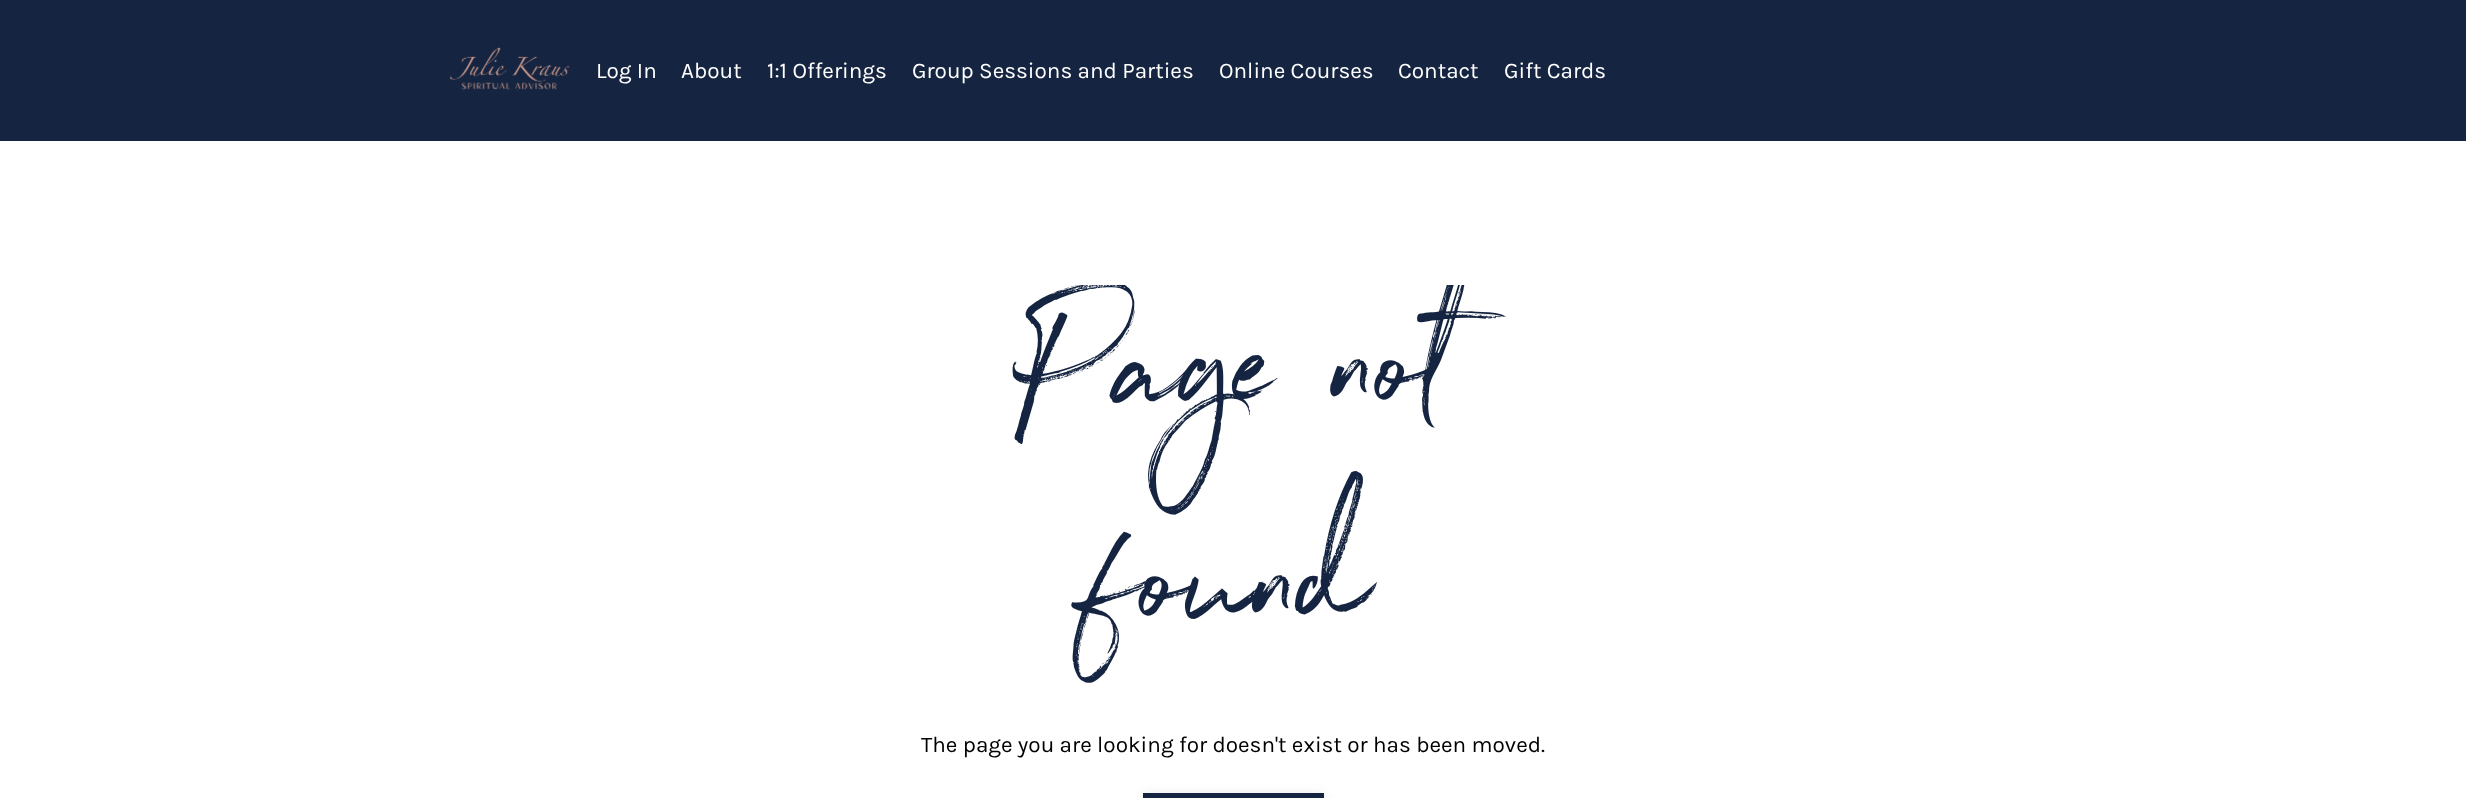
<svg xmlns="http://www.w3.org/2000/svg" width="2466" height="798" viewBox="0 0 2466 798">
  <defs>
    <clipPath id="clip1"><rect x="849" y="285" width="769" height="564" rx="5"/></clipPath>
  </defs>
  <rect width="100%" height="100%" fill="rgb(255,255,255)"/>
  <rect x="0" y="0" width="2466" height="141" fill="rgb(21,36,64)"/>
  <image x="450" y="47" width="120" height="44" href="pic1.png"/>
  <g font-family="Karla" font-size="22.5" fill="rgb(255,255,255)">
    <text x="596" y="78">Log In</text>
    <text x="681" y="78">About</text>
    <text x="767" y="78">1:1 Offerings</text>
    <text x="912" y="78">Group Sessions and Parties</text>
    <text x="1219" y="78">Online Courses</text>
    <text x="1398" y="78">Contact</text>
    <text x="1504" y="78">Gift Cards</text>
  </g>
  <g clip-path="url(#clip1)">
    <text x="1014" y="400" font-family="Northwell" font-size="180" fill="rgb(21,36,64)">Page not</text>
  </g>
  <text x="1094" y="616" font-family="Northwell" font-size="180" fill="rgb(21,36,64)">found</text>
  <text x="921" y="752" font-family="Karla" font-size="22.5" fill="rgb(0,0,0)">The page you are looking for doesn't exist or has been moved.</text>
  <rect x="1143" y="795" width="181" height="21" fill="rgba(0,0,0,0.1)" filter="blur(6px)"/>
  <rect x="1143" y="793" width="181" height="5" fill="rgb(21,36,64)"/>
</svg>
